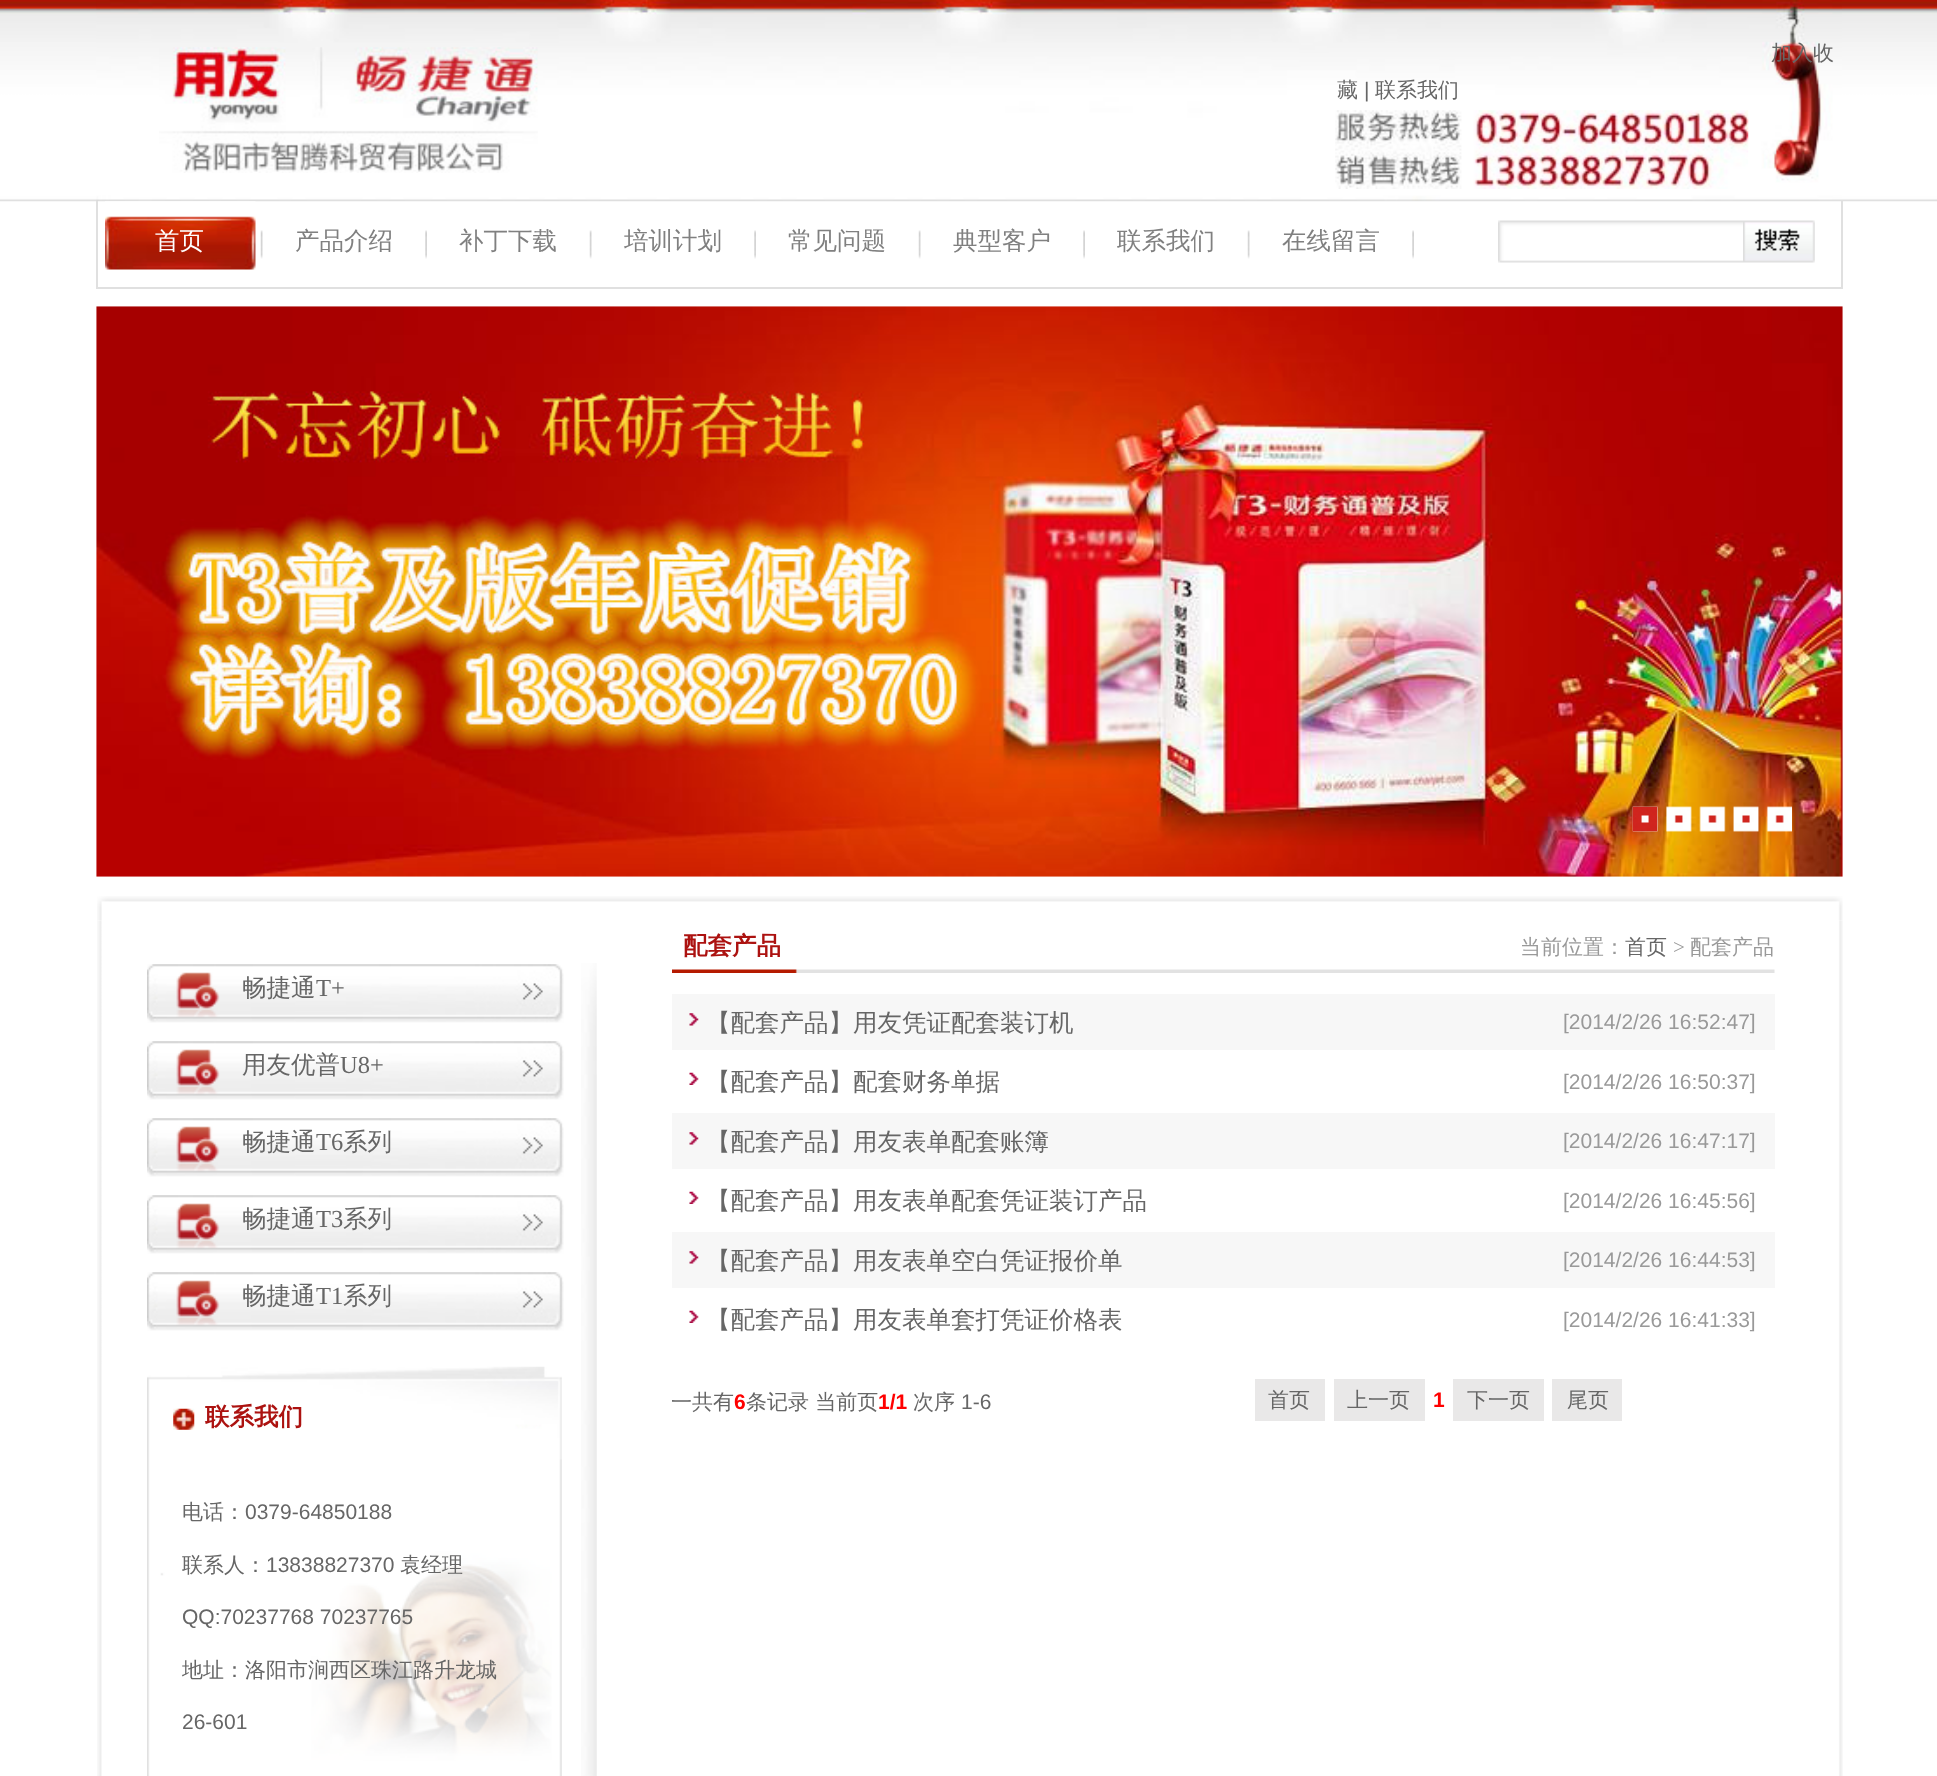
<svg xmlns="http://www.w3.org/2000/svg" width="1937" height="1776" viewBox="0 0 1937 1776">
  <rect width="100%" height="100%" fill="rgb(255,255,255)"/>
  <image x="0" y="0" width="1937" height="202" href="pic1.png"/>
  <image x="96" y="0" width="1746" height="201" href="pic2.png"/>
  <image x="159" y="47" width="379" height="126" href="pic3.png"/>
  <g font-family="WenQuanYi Zen Hei" font-size="21" font-weight="500" fill="rgb(102,102,102)">
    <text x="1771" y="60">加入收</text>
    <text x="1337" y="97">藏</text>
  </g>
  <text x="1364" y="97" font-family="Liberation Sans" font-size="21" fill="rgb(102,102,102)">|</text>
  <text x="1375" y="97" font-family="WenQuanYi Zen Hei" font-size="21" font-weight="500" fill="rgb(102,102,102)">联系我们</text>
  <image x="1335" y="110" width="414" height="79" href="pic4.png"/>
  <rect x="1841" y="201" width="2" height="88" fill="rgb(224,224,224)"/>
  <rect x="96" y="287" width="1747" height="2" fill="rgb(224,224,224)"/>
  <rect x="96" y="201" width="2" height="88" fill="rgb(224,224,224)"/>
  <image x="260" y="230" width="3" height="29" href="pic5.png"/>
  <image x="105" y="201" width="151" height="69" href="pic6.png"/>
  <text x="155" y="249" font-family="WenQuanYi Zen Hei" font-size="24.5" font-weight="500" fill="rgb(255,255,255)">首页</text>
  <image x="425" y="230" width="2" height="29" href="pic7.png"/>
  <text x="295" y="249" font-family="WenQuanYi Zen Hei" font-size="24.5" font-weight="500" fill="rgb(128,128,128)">产品介绍</text>
  <image x="589" y="230" width="3" height="29" href="pic5.png"/>
  <text x="459" y="249" font-family="WenQuanYi Zen Hei" font-size="24.5" font-weight="500" fill="rgb(128,128,128)">补丁下载</text>
  <image x="754" y="230" width="2" height="29" href="pic7.png"/>
  <text x="624" y="249" font-family="WenQuanYi Zen Hei" font-size="24.5" font-weight="500" fill="rgb(128,128,128)">培训计划</text>
  <image x="918" y="230" width="3" height="29" href="pic5.png"/>
  <text x="788" y="249" font-family="WenQuanYi Zen Hei" font-size="24.5" font-weight="500" fill="rgb(128,128,128)">常见问题</text>
  <image x="1083" y="230" width="2" height="29" href="pic7.png"/>
  <text x="953" y="249" font-family="WenQuanYi Zen Hei" font-size="24.5" font-weight="500" fill="rgb(128,128,128)">典型客户</text>
  <image x="1247" y="230" width="3" height="29" href="pic5.png"/>
  <text x="1117" y="249" font-family="WenQuanYi Zen Hei" font-size="24.5" font-weight="500" fill="rgb(128,128,128)">联系我们</text>
  <image x="1412" y="230" width="2" height="29" href="pic7.png"/>
  <text x="1282" y="249" font-family="WenQuanYi Zen Hei" font-size="24.5" font-weight="500" fill="rgb(128,128,128)">在线留言</text>
  <image x="1498" y="220" width="245" height="43" href="pic8.png"/>
  <image x="1743" y="220" width="72" height="43" href="pic9.png"/>
  <image x="96" y="306" width="1747" height="571" href="pic10.png"/>
  <image x="1632" y="806" width="160" height="26" href="pic11.png"/>
  <image x="1632" y="806" width="26" height="26" href="pic12.png"/>
  <image x="97" y="896" width="1746" height="25" href="pic13.png"/>
  <image x="97" y="920" width="1746" height="856" href="pic14.png"/>
  <image x="581" y="963" width="16" height="813" href="pic15.png"/>
  <image x="147" y="964" width="417" height="59" href="pic16.png"/>
  <text x="242" y="996" font-family="WenQuanYi Zen Hei" font-size="24.5" font-weight="500" fill="rgb(102,102,102)">畅捷通</text>
  <text x="316" y="996" font-family="Liberation Serif" font-size="24.5" fill="rgb(102,102,102)">T+</text>
  <image x="147" y="1041" width="417" height="59" href="pic16.png"/>
  <text x="242" y="1073" font-family="WenQuanYi Zen Hei" font-size="24.5" font-weight="500" fill="rgb(102,102,102)">用友优普</text>
  <text x="340" y="1073" font-family="Liberation Serif" font-size="24.5" fill="rgb(102,102,102)">U8+</text>
  <image x="147" y="1118" width="417" height="59" href="pic16.png"/>
  <text x="242" y="1150" font-family="WenQuanYi Zen Hei" font-size="24.5" font-weight="500" fill="rgb(102,102,102)">畅捷通</text>
  <text x="316" y="1150" font-family="Liberation Serif" font-size="24.5" fill="rgb(102,102,102)">T6</text>
  <text x="343" y="1150" font-family="WenQuanYi Zen Hei" font-size="24.5" font-weight="500" fill="rgb(102,102,102)">系列</text>
  <image x="147" y="1195" width="417" height="59" href="pic16.png"/>
  <text x="242" y="1227" font-family="WenQuanYi Zen Hei" font-size="24.5" font-weight="500" fill="rgb(102,102,102)">畅捷通</text>
  <text x="316" y="1227" font-family="Liberation Serif" font-size="24.5" fill="rgb(102,102,102)">T3</text>
  <text x="343" y="1227" font-family="WenQuanYi Zen Hei" font-size="24.5" font-weight="500" fill="rgb(102,102,102)">系列</text>
  <image x="147" y="1272" width="417" height="59" href="pic16.png"/>
  <text x="242" y="1304" font-family="WenQuanYi Zen Hei" font-size="24.5" font-weight="500" fill="rgb(102,102,102)">畅捷通</text>
  <text x="316" y="1304" font-family="Liberation Serif" font-size="24.5" fill="rgb(102,102,102)">T1</text>
  <text x="343" y="1304" font-family="WenQuanYi Zen Hei" font-size="24.5" font-weight="500" fill="rgb(102,102,102)">系列</text>
  <image x="147" y="1366" width="415" height="410" href="pic17.png"/>
  <image x="173" y="1408" width="22" height="22" href="pic18.png"/>
  <text x="205" y="1425" font-family="WenQuanYi Zen Hei" font-size="24.5" font-weight="bold" fill="rgb(172,18,16)">联系我们</text>
  <text x="182" y="1519" font-family="WenQuanYi Zen Hei" font-size="21" font-weight="500" fill="rgb(102,102,102)">电话：</text>
  <text x="245" y="1519" font-family="Liberation Sans" font-size="21" fill="rgb(102,102,102)">0379-64850188</text>
  <text x="182" y="1572" font-family="WenQuanYi Zen Hei" font-size="21" font-weight="500" fill="rgb(102,102,102)">联系人：</text>
  <text x="266" y="1572" font-family="Liberation Sans" font-size="21" fill="rgb(102,102,102)">13838827370</text>
  <text x="400" y="1572" font-family="WenQuanYi Zen Hei" font-size="21" font-weight="500" fill="rgb(102,102,102)">袁经理</text>
  <text x="182" y="1624" font-family="Liberation Sans" font-size="21" fill="rgb(102,102,102)">QQ:70237768 70237765</text>
  <text x="182" y="1677" font-family="WenQuanYi Zen Hei" font-size="21" font-weight="500" fill="rgb(102,102,102)">地址：洛阳市涧西区珠江路升龙城</text>
  <text x="182" y="1729" font-family="Liberation Sans" font-size="21" fill="rgb(102,102,102)">26-601</text>
  <image x="672" y="969" width="1103" height="4" href="pic19.png"/>
  <text x="683" y="954" font-family="WenQuanYi Zen Hei" font-size="24.5" font-weight="bold" fill="rgb(172,18,16)">配套产品</text>
  <text x="1520" y="954" font-family="WenQuanYi Zen Hei" font-size="21" font-weight="500" fill="rgb(153,153,153)">当前位置：</text>
  <text x="1625" y="954" font-family="WenQuanYi Zen Hei" font-size="21" font-weight="500" fill="rgb(102,102,102)">首页</text>
  <text x="1673" y="954" font-family="Liberation Serif" font-size="21" fill="rgb(153,153,153)">&gt;</text>
  <text x="1690" y="954" font-family="WenQuanYi Zen Hei" font-size="21" font-weight="500" fill="rgb(153,153,153)">配套产品</text>
  <rect x="672" y="994" width="1103" height="56" fill="rgb(247,247,247)"/>
  <image x="689" y="1013" width="10" height="13" href="pic20.png"/>
  <text x="706" y="1031" font-family="WenQuanYi Zen Hei" font-size="24.5" font-weight="500" fill="rgb(102,102,102)">【配套产品】用友凭证配套装订机</text>
  <text x="1563" y="1029" font-family="Liberation Sans" font-size="21" fill="rgb(153,153,153)">[2014/2/26 16:52:47]</text>
  <image x="689" y="1072" width="10" height="13" href="pic21.png"/>
  <text x="706" y="1090" font-family="WenQuanYi Zen Hei" font-size="24.5" font-weight="500" fill="rgb(102,102,102)">【配套产品】配套财务单据</text>
  <text x="1563" y="1089" font-family="Liberation Sans" font-size="21" fill="rgb(153,153,153)">[2014/2/26 16:50:37]</text>
  <rect x="672" y="1113" width="1103" height="56" fill="rgb(247,247,247)"/>
  <image x="689" y="1132" width="10" height="13" href="pic20.png"/>
  <text x="706" y="1150" font-family="WenQuanYi Zen Hei" font-size="24.5" font-weight="500" fill="rgb(102,102,102)">【配套产品】用友表单配套账簿</text>
  <text x="1563" y="1148" font-family="Liberation Sans" font-size="21" fill="rgb(153,153,153)">[2014/2/26 16:47:17]</text>
  <image x="689" y="1191" width="10" height="13" href="pic21.png"/>
  <text x="706" y="1209" font-family="WenQuanYi Zen Hei" font-size="24.5" font-weight="500" fill="rgb(102,102,102)">【配套产品】用友表单配套凭证装订产品</text>
  <text x="1563" y="1208" font-family="Liberation Sans" font-size="21" fill="rgb(153,153,153)">[2014/2/26 16:45:56]</text>
  <rect x="672" y="1232" width="1103" height="56" fill="rgb(247,247,247)"/>
  <image x="689" y="1251" width="10" height="13" href="pic20.png"/>
  <text x="706" y="1269" font-family="WenQuanYi Zen Hei" font-size="24.5" font-weight="500" fill="rgb(102,102,102)">【配套产品】用友表单空白凭证报价单</text>
  <text x="1563" y="1267" font-family="Liberation Sans" font-size="21" fill="rgb(153,153,153)">[2014/2/26 16:44:53]</text>
  <image x="689" y="1310" width="10" height="13" href="pic21.png"/>
  <text x="706" y="1328" font-family="WenQuanYi Zen Hei" font-size="24.5" font-weight="500" fill="rgb(102,102,102)">【配套产品】用友表单套打凭证价格表</text>
  <text x="1563" y="1327" font-family="Liberation Sans" font-size="21" fill="rgb(153,153,153)">[2014/2/26 16:41:33]</text>
  <text x="671" y="1409" font-family="WenQuanYi Zen Hei" font-size="21" font-weight="500" fill="rgb(102,102,102)">一共有</text>
  <text x="734" y="1409" font-family="Liberation Sans" font-size="21" font-weight="bold" fill="rgb(255,0,0)">6</text>
  <text x="746" y="1409" font-family="WenQuanYi Zen Hei" font-size="21" font-weight="500" fill="rgb(102,102,102)">条记录 当前页</text>
  <text x="878" y="1409" font-family="Liberation Sans" font-size="21" font-weight="bold" fill="rgb(255,0,0)">1/1</text>
  <text x="913" y="1409" font-family="WenQuanYi Zen Hei" font-size="21" font-weight="500" fill="rgb(102,102,102)">次序</text>
  <text x="961" y="1409" font-family="Liberation Sans" font-size="21" fill="rgb(102,102,102)">1-6</text>
  <rect x="1255" y="1379" width="70" height="42" fill="rgb(233,232,232)"/>
  <text x="1268" y="1407" font-family="WenQuanYi Zen Hei" font-size="21" font-weight="500" fill="rgb(102,102,102)">首页</text>
  <rect x="1334" y="1379" width="91" height="42" fill="rgb(233,232,232)"/>
  <text x="1347" y="1407" font-family="WenQuanYi Zen Hei" font-size="21" font-weight="500" fill="rgb(102,102,102)">上一页</text>
  <text x="1433" y="1407" font-family="Liberation Sans" font-size="21" font-weight="bold" fill="rgb(255,0,0)">1</text>
  <rect x="1453" y="1379" width="91" height="42" fill="rgb(233,232,232)"/>
  <text x="1467" y="1407" font-family="WenQuanYi Zen Hei" font-size="21" font-weight="500" fill="rgb(102,102,102)">下一页</text>
  <rect x="1552" y="1379" width="70" height="42" fill="rgb(233,232,232)"/>
  <text x="1567" y="1407" font-family="WenQuanYi Zen Hei" font-size="21" font-weight="500" fill="rgb(102,102,102)">尾页</text>
</svg>
